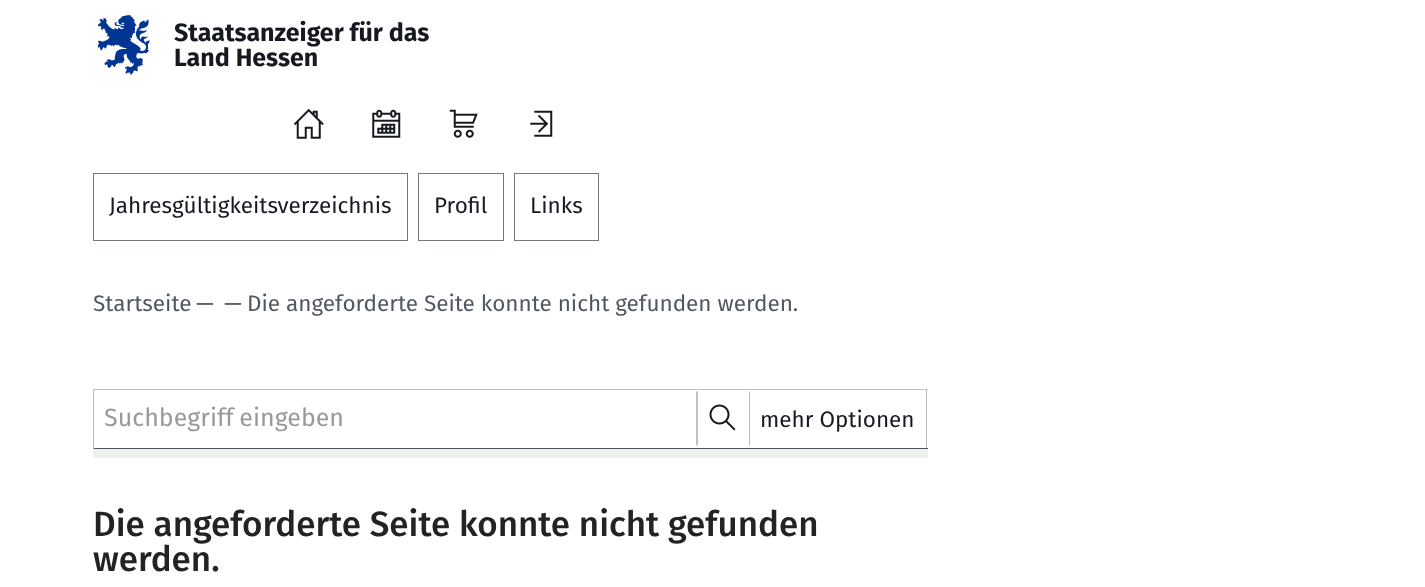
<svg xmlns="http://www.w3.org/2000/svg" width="1425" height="587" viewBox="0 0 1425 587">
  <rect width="100%" height="100%" fill="rgb(255,255,255)"/>
  <image x="98" y="15" width="52" height="60" href="pic1.png"/>
  <g font-family="Fira Sans" font-size="25" font-weight="bold" fill="rgb(22,25,31)">
    <text>
      <tspan x="174" y="41">Staatsanzeiger für das</tspan>
      <tspan x="174" y="66">Land Hessen</tspan>
    </text>
  </g>
  <image x="294" y="109" width="30" height="30" href="pic2.png"/>
  <image x="372" y="109" width="29" height="29" href="pic3.png"/>
  <image x="449" y="109" width="29" height="29" href="pic4.png"/>
  <image x="530" y="110" width="23" height="27" href="pic5.png"/>
  <rect x="93.5" y="173.5" width="314" height="67" fill="none" stroke="rgb(115,120,127)"/>
  <text x="109" y="213" font-family="Fira Sans" font-size="22.5" fill="rgb(22,25,31)">Jahresgültigkeitsverzeichnis</text>
  <rect x="418.5" y="173.5" width="85" height="67" fill="none" stroke="rgb(115,120,127)"/>
  <text x="434" y="213" font-family="Fira Sans" font-size="22.5" fill="rgb(22,25,31)">Profil</text>
  <rect x="514.5" y="173.5" width="84" height="67" fill="none" stroke="rgb(115,120,127)"/>
  <text x="530" y="213" font-family="Fira Sans" font-size="22.5" fill="rgb(22,25,31)">Links</text>
  <g font-family="Fira Sans" font-size="22.5" fill="rgb(81,87,96)">
    <text x="93" y="311">Startseite</text>
    <text x="196" y="311">—</text>
    <text x="224" y="311">—</text>
    <text x="247" y="311">Die angeforderte Seite konnte nicht gefunden werden.</text>
  </g>
  <rect x="93" y="389" width="835" height="1" fill="rgb(190,192,195)"/>
  <rect x="926" y="389" width="1" height="60" fill="rgb(190,192,195)"/>
  <rect x="93" y="448" width="835" height="1" fill="rgb(81,87,96)"/>
  <rect x="93" y="389" width="1" height="60" fill="rgb(190,192,195)"/>
  <text x="104" y="426" word-spacing="-1" font-family="Fira Sans" font-size="25" fill="rgb(153,153,153)">Suchbegriff eingeben</text>
  <path d="M696 446V391L698 392V445ZM749 446V391L750 392V445Z" fill="rgb(190,192,195)"/>
  <image x="709" y="404" width="27" height="27" href="pic6.png"/>
  <text x="760" y="427" font-family="Fira Sans" font-size="22.5" fill="rgb(22,25,31)">mehr Optionen</text>
  <rect x="93" y="449" width="835" height="9" fill="rgb(238,242,238)"/>
  <g font-family="Fira Sans" font-size="35" font-weight="500" fill="rgb(35,35,35)">
    <text>
      <tspan x="93" y="536">Die angeforderte Seite konnte nicht gefunden</tspan>
      <tspan x="93" y="571">werden.</tspan>
    </text>
  </g>
</svg>
